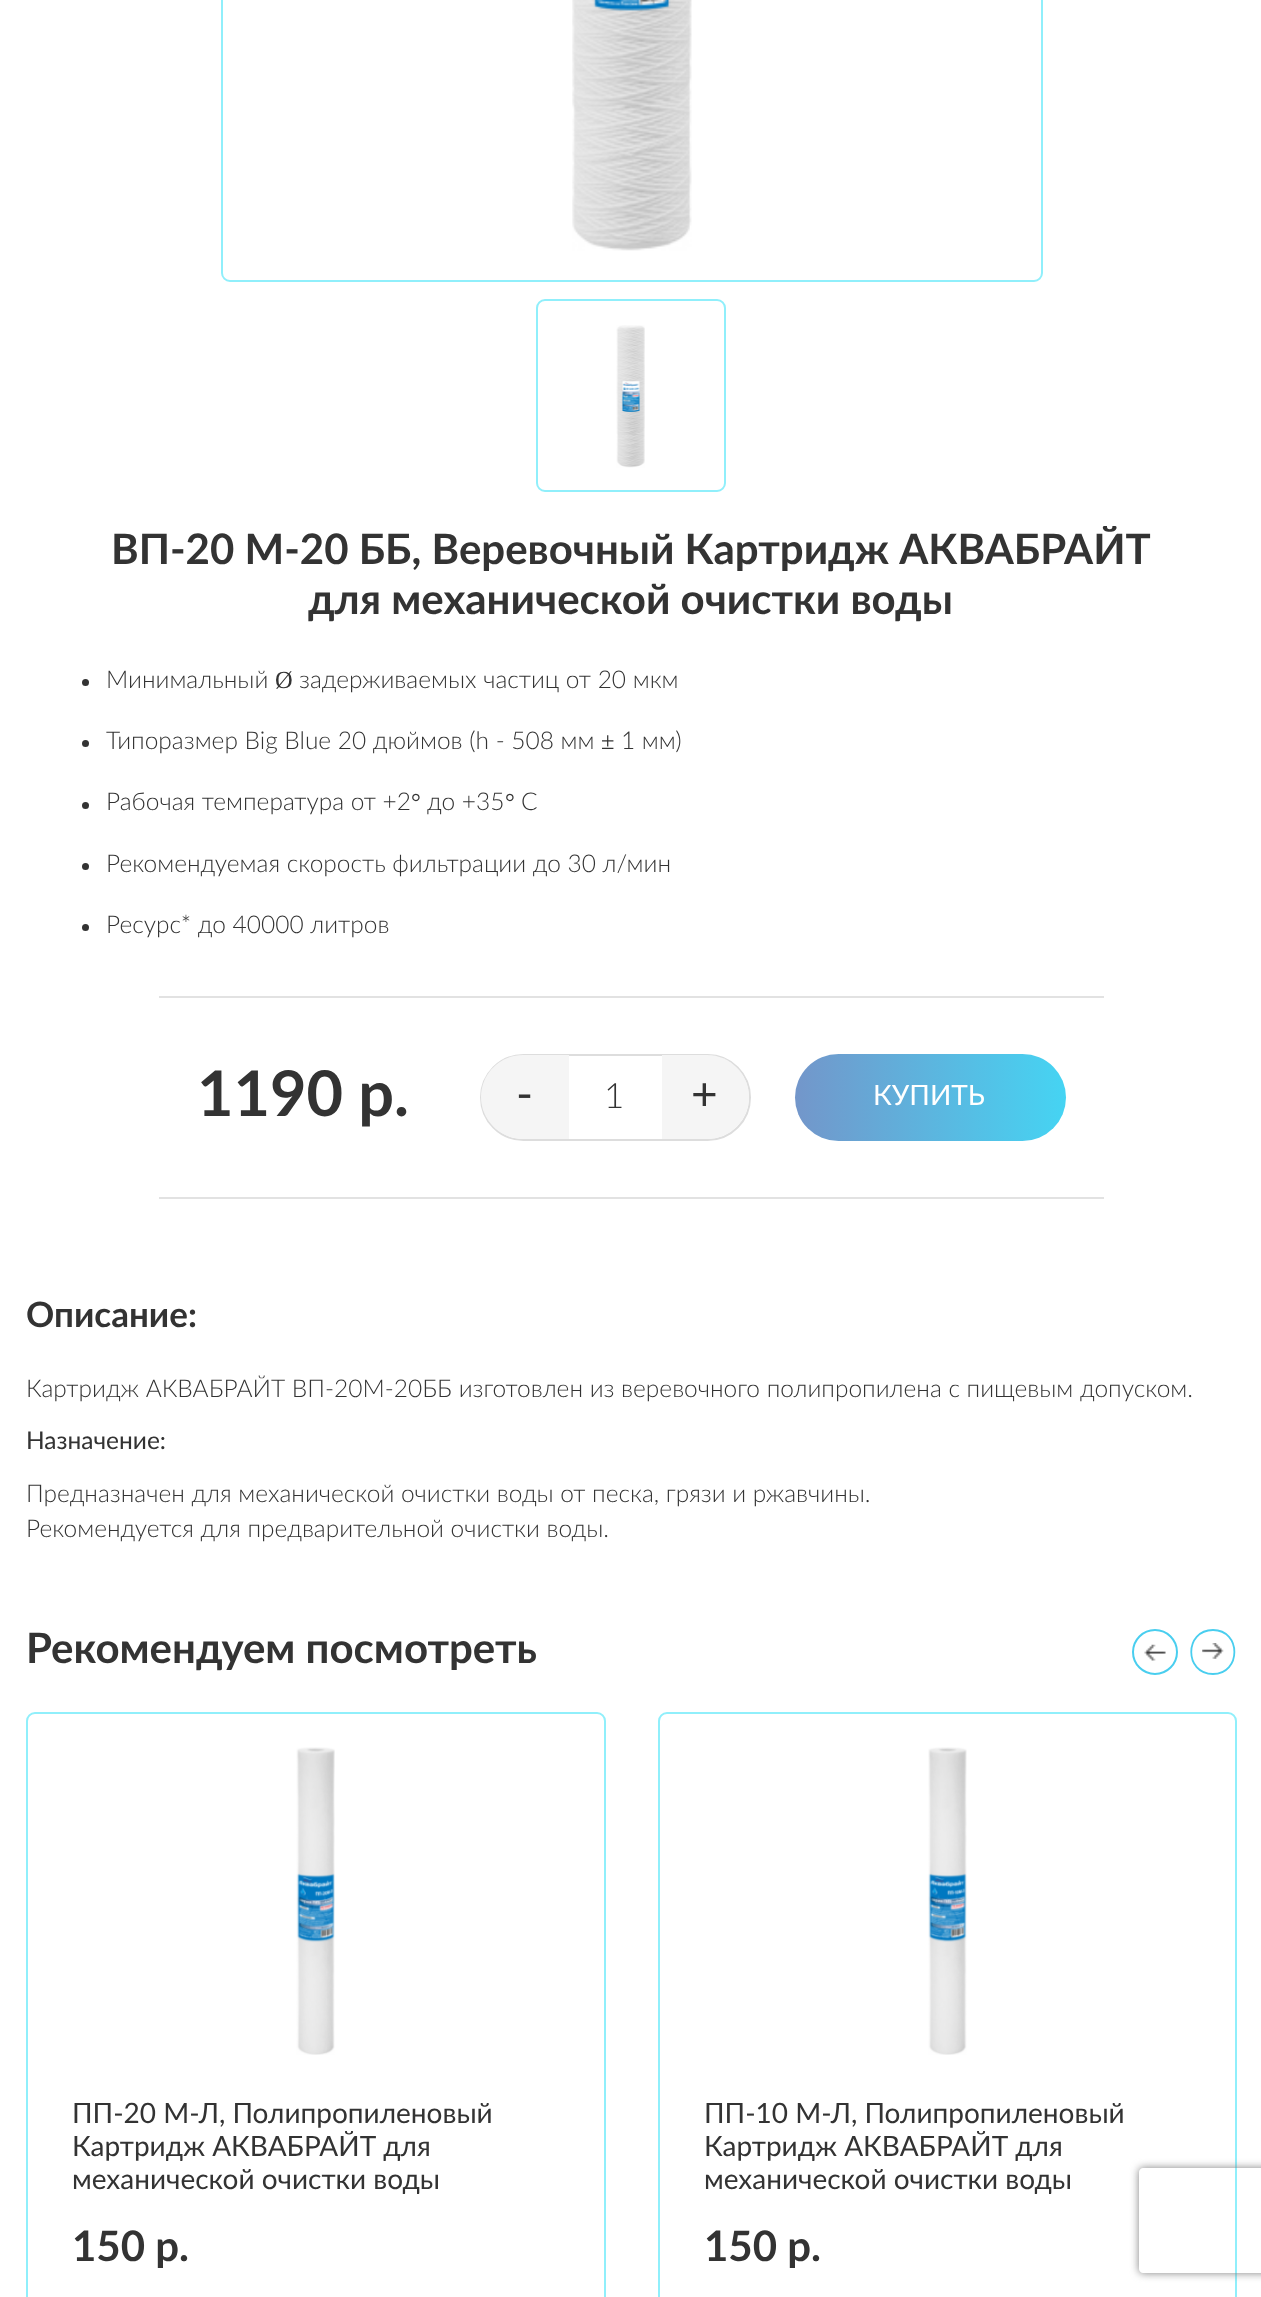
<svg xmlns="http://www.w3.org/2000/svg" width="1261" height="2297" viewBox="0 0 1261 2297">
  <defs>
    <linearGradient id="g1" gradientUnits="userSpaceOnUse" x1="795" y1="1097" x2="1066" y2="1097"><stop offset="0" stop-color="rgb(115,150,202)"/><stop offset="1" stop-color="rgb(69,212,243)"/></linearGradient>
    <clipPath id="clip1"><path d="M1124 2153H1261V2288H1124ZM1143 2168H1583C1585 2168 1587 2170 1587 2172V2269C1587 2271 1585 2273 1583 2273H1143C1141 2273 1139 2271 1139 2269V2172C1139 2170 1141 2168 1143 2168Z" clip-rule="evenodd"/></clipPath>
  </defs>
  <rect width="100%" height="100%" fill="rgb(255,255,255)"/>
  <rect x="222" y="-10" width="820" height="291" rx="8" fill="none" stroke="rgb(144,239,251)" stroke-width="2"/>
  <image x="572" y="0" width="120" height="251" href="pic1.png"/>
  <rect x="537" y="300" width="188" height="191" rx="8" fill="none" stroke="rgb(144,239,251)" stroke-width="2"/>
  <image x="616" y="325" width="29" height="143" href="pic2.png"/>
  <g font-family="Lato" font-size="42" font-weight="bold" fill="rgb(51,51,51)">
    <text x="111" y="564">ВП-20 М-20 ББ, Веревочный Картридж АКВАБРАЙТ</text>
    <text x="308" y="614">для механической очистки воды</text>
  </g>
  <circle cx="85.5" cy="682.5" r="3.5" fill="rgb(51,51,51)"/>
  <text x="106" y="688" font-family="Lato" font-size="24.5" font-weight="300" fill="rgb(51,51,51)">Минимальный</text>
  <text x="275" y="688" font-family="Liberation Serif" font-size="24.5" fill="rgb(51,51,51)">Ø</text>
  <text x="299" y="688" font-family="Lato" font-size="24.5" font-weight="300" fill="rgb(51,51,51)">задерживаемых частиц от 20 мкм</text>
  <circle cx="85.5" cy="743.5" r="3.5" fill="rgb(51,51,51)"/>
  <text x="106" y="749" font-family="Lato" font-size="24.5" font-weight="300" fill="rgb(51,51,51)">Типоразмер Big Blue 20 дюймов (h - 508 мм</text>
  <text x="601" y="749" font-family="Liberation Serif" font-size="24.5" fill="rgb(51,51,51)">±</text>
  <g font-family="Lato" font-size="24.5" font-weight="300" fill="rgb(51,51,51)">
    <text x="621" y="749">1 мм)</text>
    <text x="106" y="810">Рабочая температура от +2</text>
  </g>
  <text x="411" y="810" font-family="Liberation Serif" font-size="24.5" fill="rgb(51,51,51)">°</text>
  <text x="427" y="810" font-family="Lato" font-size="24.5" font-weight="300" fill="rgb(51,51,51)">до +35</text>
  <text x="505" y="810" font-family="Liberation Serif" font-size="24.5" fill="rgb(51,51,51)">°</text>
  <text x="521" y="810" font-family="Lato" font-size="24.5" font-weight="300" fill="rgb(51,51,51)">С</text>
  <circle cx="85.5" cy="805.5" r="3.5" fill="rgb(51,51,51)"/>
  <circle cx="85.5" cy="866.5" r="3.5" fill="rgb(51,51,51)"/>
  <text x="106" y="872" font-family="Lato" font-size="24.5" font-weight="300" fill="rgb(51,51,51)">Рекомендуемая скорость фильтрации до 30 л/мин</text>
  <circle cx="85.5" cy="927.5" r="3.5" fill="rgb(51,51,51)"/>
  <text x="106" y="933" font-family="Lato" font-size="24.5" font-weight="300" fill="rgb(51,51,51)">Ресурс* до 40000 литров</text>
  <rect x="159" y="996" width="945" height="2" fill="rgb(226,226,226)"/>
  <rect x="159" y="1197" width="945" height="2" fill="rgb(226,226,226)"/>
  <text x="197" y="1116" font-family="Lato" font-size="63" font-weight="bold" fill="rgb(51,51,51)">1190 р.</text>
  <rect x="481" y="1055" width="269" height="85" rx="42.5" fill="none" stroke="rgb(221,221,221)" stroke-width="2"/>
  <path d="M523 1055H569V1139H523C500 1139 481 1120 481 1097C481 1074 500 1055 523 1055Z" fill="rgb(245,245,245)"/>
  <text x="516" y="1110" font-family="Lato" font-size="46" fill="rgb(51,51,51)">-</text>
  <text x="604" y="1108" font-family="Lato" font-size="35" font-weight="300" fill="rgb(51,51,51)">1</text>
  <path d="M662 1055H707C730 1055 749 1074 749 1097C749 1120 730 1139 707 1139H662Z" fill="rgb(245,245,245)"/>
  <text x="691" y="1110" font-family="Lato" font-size="46" fill="rgb(51,51,51)">+</text>
  <rect x="795" y="1054" width="271" height="87" rx="43.5" fill="url(#g1)"/>
  <text x="873" y="1105" font-family="Lato" font-size="28" fill="rgb(255,255,255)">КУПИТЬ</text>
  <text x="26" y="1327" font-family="Lato" font-size="35" font-weight="bold" fill="rgb(51,51,51)">Описание:</text>
  <text x="26" y="1397" font-family="Lato" font-size="24.5" font-weight="300" fill="rgb(51,51,51)">Картридж АКВАБРАЙТ ВП-20М-20ББ изготовлен из веревочного полипропилена с пищевым допуском.</text>
  <text x="26" y="1449" font-family="Lato" font-size="24.5" fill="rgb(51,51,51)">Назначение:</text>
  <g font-family="Lato" font-size="24.5" font-weight="300" fill="rgb(51,51,51)">
    <text>
      <tspan x="26" y="1502">Предназначен для механической очистки воды от песка, грязи и ржавчины.</tspan>
      <tspan x="26" y="1537">Рекомендуется для предварительной очистки воды.</tspan>
    </text>
  </g>
  <text x="26" y="1663" font-family="Lato" font-size="42" font-weight="bold" fill="rgb(51,51,51)">Рекомендуем посмотреть</text>
  <image x="1144" y="1644" width="22" height="17" href="pic3.png"/>
  <circle cx="1155" cy="1652" r="22" fill="none" stroke="rgb(73,206,239)" stroke-width="2"/>
  <image x="1202" y="1643" width="22" height="16" href="pic4.png"/>
  <path d="M1213 1674C1184 1674 1184 1630 1213 1630C1241.5 1630 1241.5 1674 1213 1674Z" fill="none" stroke="rgb(73,206,239)" stroke-width="1.8"/>
  <rect x="27" y="1713" width="578" height="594" rx="8" fill="none" stroke="rgb(144,239,251)" stroke-width="2"/>
  <image x="296" y="1747" width="39" height="308" href="pic5.png"/>
  <g font-family="Lato" font-size="28" fill="rgb(51,51,51)">
    <text>
      <tspan x="72" y="2123">ПП-20 М-Л, Полипропиленовый</tspan>
      <tspan x="72" y="2156">Картридж АКВАБРАЙТ для</tspan>
      <tspan x="72" y="2189">механической очистки воды</tspan>
    </text>
  </g>
  <text x="72" y="2261" font-family="Lato" font-size="42" font-weight="bold" fill="rgb(51,51,51)">150 р.</text>
  <rect x="659" y="1713" width="577" height="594" rx="8" fill="none" stroke="rgb(144,239,251)" stroke-width="2"/>
  <image x="928" y="1747" width="39" height="308" href="pic6.png"/>
  <g font-family="Lato" font-size="28" fill="rgb(51,51,51)">
    <text>
      <tspan x="704" y="2123">ПП-10 М-Л, Полипропиленовый</tspan>
      <tspan x="704" y="2156">Картридж АКВАБРАЙТ для</tspan>
      <tspan x="704" y="2189">механической очистки воды</tspan>
    </text>
  </g>
  <text x="704" y="2261" font-family="Lato" font-size="42" font-weight="bold" fill="rgb(51,51,51)">150 р.</text>
  <g clip-path="url(#clip1)">
    <rect x="1139" y="2168" width="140" height="105" rx="4" fill="rgb(128,128,128)" filter="blur(4.5px)"/>
  </g>
</svg>
